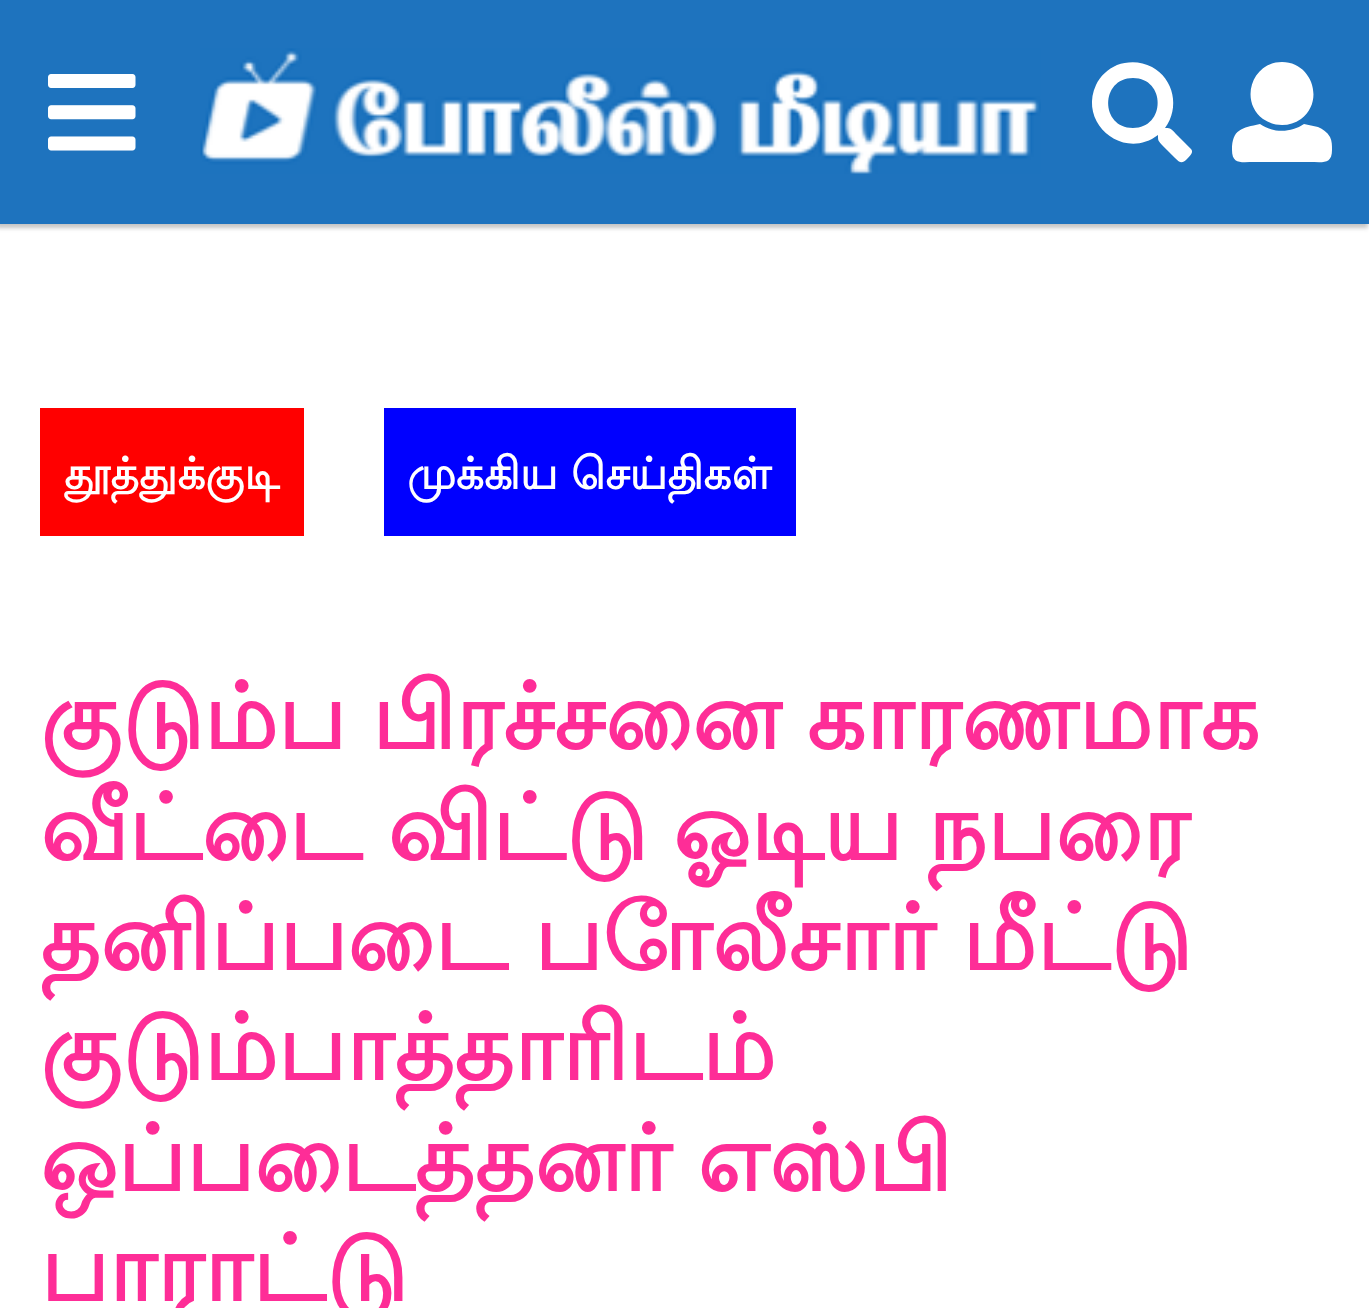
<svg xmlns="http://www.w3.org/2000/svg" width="1369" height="1308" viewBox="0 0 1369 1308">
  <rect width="100%" height="100%" fill="rgb(255,255,255)"/>
  <rect x="-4" y="4" width="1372" height="224" fill="rgba(42,42,42,0.27)" filter="blur(2px)"/>
  <rect x="0" y="0" width="1369" height="224" fill="rgb(30,115,190)"/>
  <image x="48" y="74" width="88" height="77" href="pic1.png"/>
  <image x="200" y="48" width="841" height="126" href="pic2.png"/>
  <path d="M1191 149L1178 136C1171 129 1172 128 1165 128C1180 108 1174 79 1152 67C1141 61 1128 61 1117 65C1108 69 1100 76 1096 85C1078 124 1124 161 1158 135C1158 141 1158 140 1162 145L1175 158C1180 163 1182 164 1187 159C1190 156 1194 152 1191 149ZM1133 128C1100 128 1100 78 1133 78C1166 78 1166 128 1133 128Z" fill="rgb(255,255,255)"/>
  <path d="M1282 62C1312 62 1325 101 1301 119C1295 123 1289 125 1282 125C1275 125 1269 123 1263 119C1239 101 1252 62 1282 62ZM1318 127L1304 124C1291 133 1273 133 1260 124C1242 128 1232 129 1232 150C1232 165 1242 162 1255 162H1309C1322 162 1332 165 1332 150C1332 145 1332 141 1330 137C1327 132 1323 129 1318 127Z" fill="rgb(255,255,255)"/>
  <rect x="40" y="408" width="264" height="128" fill="rgb(255,0,0)"/>
  <text x="64" y="489" font-family="Lohit Tamil" font-size="44" font-weight="bold" fill="rgb(255,255,255)">தூத்துக்குடி</text>
  <rect x="384" y="408" width="412" height="128" fill="rgb(0,0,255)"/>
  <text x="407" y="489" font-family="Lohit Tamil" font-size="44" font-weight="bold" fill="rgb(255,255,255)">முக்கிய செய்திகள்</text>
  <g font-family="Lohit Tamil" font-size="92" font-weight="bold" fill="rgb(254,45,151)">
    <text>
      <tspan x="40" y="749" word-spacing="-2">குடும்ப பிரச்சனை காரணமாக</tspan>
      <tspan x="40" y="860" word-spacing="-2">வீட்டை விட்டு ஓடிய நபரை</tspan>
      <tspan x="40" y="970" word-spacing="-1">தனிப்படை போலீசார் மீட்டு</tspan>
      <tspan x="40" y="1080">குடும்பாத்தாரிடம்</tspan>
      <tspan x="40" y="1191" word-spacing="-2">ஒப்படைத்தனர் எஸ்பி</tspan>
      <tspan x="40" y="1301">பாராட்டு</tspan>
    </text>
  </g>
</svg>
